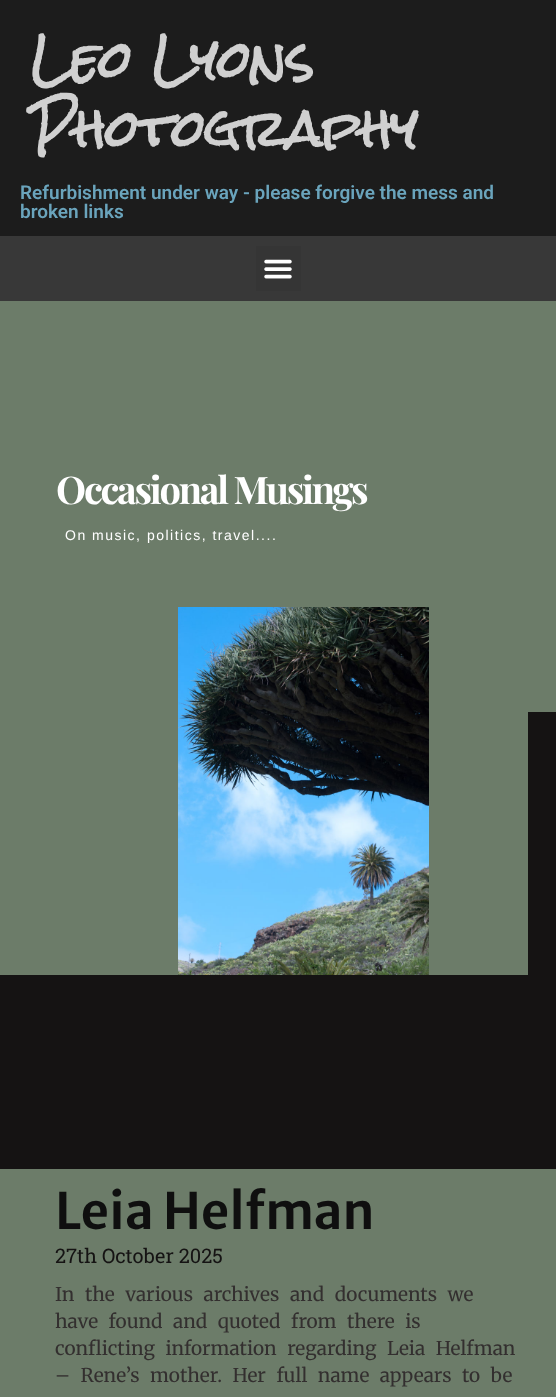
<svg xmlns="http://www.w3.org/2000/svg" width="556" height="1397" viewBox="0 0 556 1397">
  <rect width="100%" height="100%" fill="rgb(21,19,19)"/>
  <rect x="0" y="0" width="556" height="236" fill="rgb(28,28,28)"/>
  <g font-family="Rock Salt" font-size="48" font-weight="bold" fill="rgb(208,208,208)">
    <text>
      <tspan x="30" y="79">Leo Lyons</tspan>
      <tspan x="30" y="148">Photography</tspan>
    </text>
  </g>
  <g font-family="Roboto" font-size="19" font-weight="600" fill="rgb(106,164,188)">
    <text>
      <tspan x="20" y="199">Refurbishment under way - please forgive the mess and</tspan>
      <tspan x="20" y="218">broken links</tspan>
    </text>
  </g>
  <rect x="0" y="236" width="556" height="65" fill="rgb(56,56,56)"/>
  <rect x="256" y="246" width="45" height="45" fill="rgb(53,53,53)"/>
  <image x="264" y="259" width="28" height="20" href="pic1.png"/>
  <rect x="0" y="301" width="556" height="411" fill="rgb(108,124,105)"/>
  <text x="56" y="504" font-family="Playfair Display" font-size="38" font-weight="bold" letter-spacing="-2.25" fill="rgb(255,255,255)">Occasional Musings</text>
  <text x="65" y="540" font-family="Liberation Sans" font-size="14" letter-spacing="1.5" fill="rgb(255,255,255)">On music, politics, travel....</text>
  <rect x="0" y="712" width="528" height="263" fill="rgb(108,124,105)"/>
  <image x="178" y="607" width="251" height="368" href="pic2.png"/>
  <rect x="0" y="1169" width="556" height="228" fill="rgb(108,124,105)"/>
  <text x="55" y="1229" font-family="Merriweather Sans" font-size="50" font-weight="600" fill="rgb(15,15,15)">Leia Helfman</text>
  <text x="55" y="1263" font-family="Roboto Slab" font-size="20" fill="rgb(21,19,19)">27th October 2025</text>
  <g font-family="Merriweather" font-size="19" fill="rgb(51,47,47)">
    <text>
      <tspan x="55" y="1301" word-spacing="6">In the various archives and documents we</tspan>
      <tspan x="55" y="1328" word-spacing="6">have found and quoted from there is</tspan>
      <tspan x="55" y="1355" word-spacing="6">conflicting information regarding Leia Helfman</tspan>
      <tspan x="55" y="1382" word-spacing="6">– Rene’s mother. Her full name appears to be</tspan>
    </text>
  </g>
</svg>
